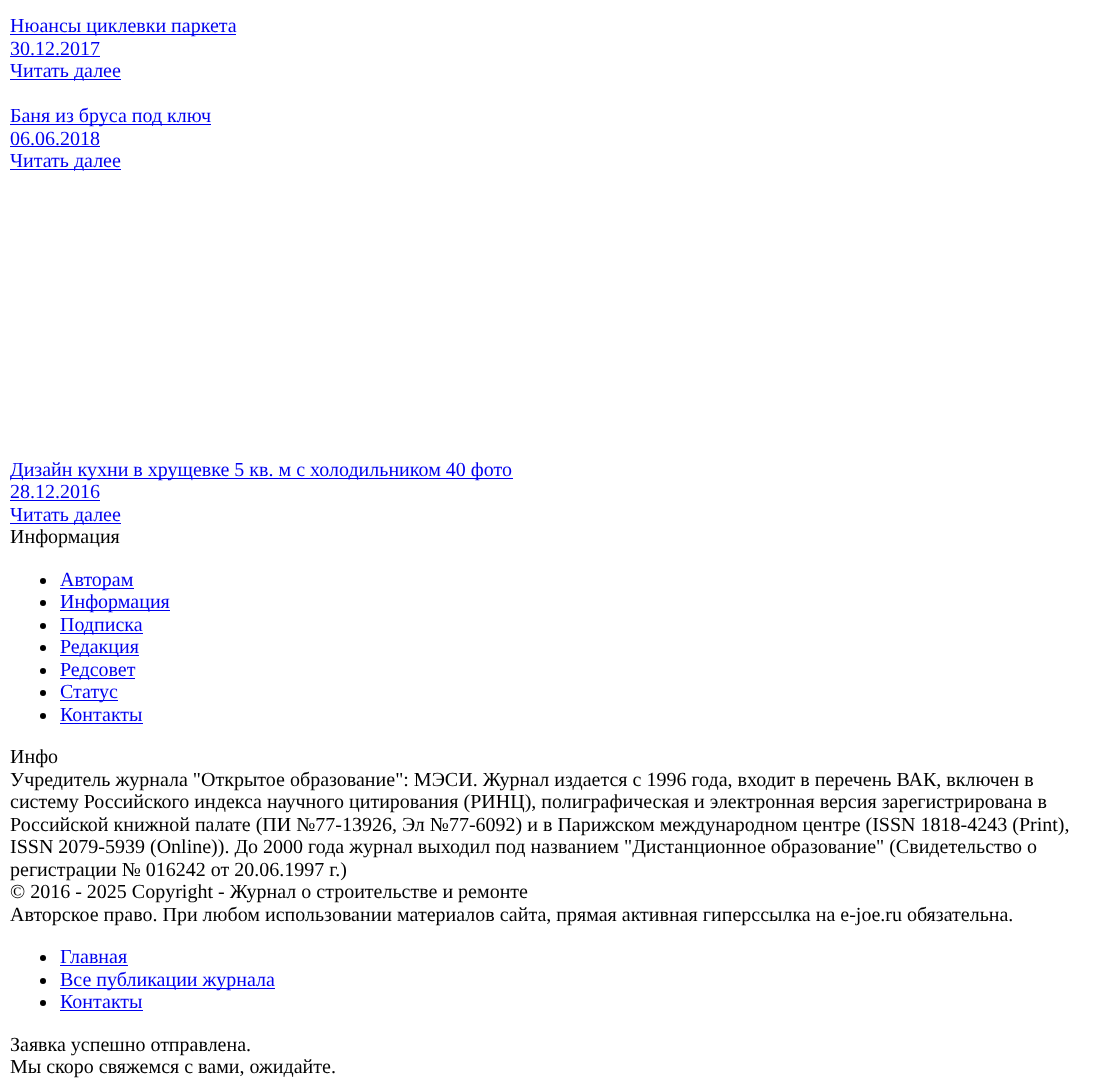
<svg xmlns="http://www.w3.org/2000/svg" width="1103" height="1088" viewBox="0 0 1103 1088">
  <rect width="100%" height="100%" fill="rgb(255,255,255)"/>
  <rect x="10" y="34" width="226" height="1" fill="rgb(0,0,238)"/>
  <g font-family="Liberation Serif" font-size="20" fill="rgb(0,0,238)">
    <text>
      <tspan x="10" y="32">Нюансы циклевки паркета</tspan>
      <tspan x="10" y="55">30.12.2017</tspan>
    </text>
  </g>
  <rect x="10" y="56" width="90" height="1" fill="rgb(0,0,238)"/>
  <rect x="10" y="79" width="111" height="1" fill="rgb(0,0,238)"/>
  <text x="10" y="77" font-family="Liberation Serif" font-size="20" fill="rgb(0,0,238)">Читать далее</text>
  <rect x="10" y="124" width="201" height="1" fill="rgb(0,0,238)"/>
  <g font-family="Liberation Serif" font-size="20" fill="rgb(0,0,238)">
    <text>
      <tspan x="10" y="122">Баня из бруса под ключ</tspan>
      <tspan x="10" y="145">06.06.2018</tspan>
    </text>
  </g>
  <rect x="10" y="146" width="90" height="1" fill="rgb(0,0,238)"/>
  <rect x="10" y="169" width="111" height="1" fill="rgb(0,0,238)"/>
  <text x="10" y="167" font-family="Liberation Serif" font-size="20" fill="rgb(0,0,238)">Читать далее</text>
  <rect x="10" y="478" width="503" height="1" fill="rgb(0,0,238)"/>
  <g font-family="Liberation Serif" font-size="20" fill="rgb(0,0,238)">
    <text>
      <tspan x="10" y="476">Дизайн кухни в хрущевке 5 кв. м с холодильником 40 фото</tspan>
      <tspan x="10" y="498">28.12.2016</tspan>
    </text>
  </g>
  <rect x="10" y="500" width="90" height="1" fill="rgb(0,0,238)"/>
  <rect x="10" y="523" width="111" height="1" fill="rgb(0,0,238)"/>
  <text x="10" y="521" font-family="Liberation Serif" font-size="20" fill="rgb(0,0,238)">Читать далее</text>
  <text x="10" y="543" font-family="Liberation Serif" font-size="20" fill="rgb(0,0,0)">Информация</text>
  <circle cx="43" cy="581" r="3" fill="rgb(0,0,0)"/>
  <rect x="60" y="588" width="74" height="1" fill="rgb(0,0,238)"/>
  <text x="60" y="586" font-family="Liberation Serif" font-size="20" fill="rgb(0,0,238)">Авторам</text>
  <circle cx="43" cy="603" r="3" fill="rgb(0,0,0)"/>
  <rect x="60" y="610" width="110" height="1" fill="rgb(0,0,238)"/>
  <text x="60" y="608" font-family="Liberation Serif" font-size="20" fill="rgb(0,0,238)">Информация</text>
  <circle cx="43" cy="626" r="3" fill="rgb(0,0,0)"/>
  <rect x="60" y="633" width="83" height="1" fill="rgb(0,0,238)"/>
  <text x="60" y="631" font-family="Liberation Serif" font-size="20" fill="rgb(0,0,238)">Подписка</text>
  <circle cx="43" cy="648" r="3" fill="rgb(0,0,0)"/>
  <rect x="60" y="655" width="79" height="1" fill="rgb(0,0,238)"/>
  <text x="60" y="653" font-family="Liberation Serif" font-size="20" fill="rgb(0,0,238)">Редакция</text>
  <circle cx="43" cy="671" r="3" fill="rgb(0,0,0)"/>
  <rect x="60" y="678" width="75" height="1" fill="rgb(0,0,238)"/>
  <text x="60" y="676" font-family="Liberation Serif" font-size="20" fill="rgb(0,0,238)">Редсовет</text>
  <circle cx="43" cy="693" r="3" fill="rgb(0,0,0)"/>
  <rect x="60" y="700" width="58" height="1" fill="rgb(0,0,238)"/>
  <text x="60" y="698" font-family="Liberation Serif" font-size="20" fill="rgb(0,0,238)">Статус</text>
  <circle cx="43" cy="716" r="3" fill="rgb(0,0,0)"/>
  <text x="60" y="721" font-family="Liberation Serif" font-size="20" fill="rgb(0,0,238)">Контакты</text>
  <rect x="60" y="723" width="83" height="1" fill="rgb(0,0,238)"/>
  <g font-family="Liberation Serif" font-size="20" fill="rgb(0,0,0)">
    <text>
      <tspan x="10" y="763">Инфо</tspan>
      <tspan x="10" y="786">Учредитель журнала "Открытое образование": МЭСИ. Журнал издается с 1996 года, входит в перечень ВАК, включен в</tspan>
      <tspan x="10" y="808">систему Российского индекса научного цитирования (РИНЦ), полиграфическая и электронная версия зарегистрирована в</tspan>
      <tspan x="10" y="831">Российской книжной палате (ПИ №77-13926, Эл №77-6092) и в Парижском международном центре (ISSN 1818-4243 (Print),</tspan>
      <tspan x="10" y="853">ISSN 2079-5939 (Online)). До 2000 года журнал выходил под названием "Дистанционное образование" (Свидетельство о</tspan>
      <tspan x="10" y="876">регистрации № 016242 от 20.06.1997 г.)</tspan>
      <tspan x="10" y="898">© 2016 - 2025 Copyright - Журнал о строительстве и ремонте</tspan>
      <tspan x="10" y="921">Авторское право. При любом использовании материалов сайта, прямая активная гиперссылка на e-joe.ru обязательна.</tspan>
    </text>
  </g>
  <circle cx="43" cy="958" r="3" fill="rgb(0,0,0)"/>
  <text x="60" y="963" font-family="Liberation Serif" font-size="20" fill="rgb(0,0,238)">Главная</text>
  <rect x="60" y="965" width="68" height="1" fill="rgb(0,0,238)"/>
  <circle cx="43" cy="981" r="3" fill="rgb(0,0,0)"/>
  <rect x="60" y="988" width="215" height="1" fill="rgb(0,0,238)"/>
  <text x="60" y="986" font-family="Liberation Serif" font-size="20" fill="rgb(0,0,238)">Все публикации журнала</text>
  <circle cx="43" cy="1003" r="3" fill="rgb(0,0,0)"/>
  <text x="60" y="1008" font-family="Liberation Serif" font-size="20" fill="rgb(0,0,238)">Контакты</text>
  <rect x="60" y="1010" width="83" height="1" fill="rgb(0,0,238)"/>
  <g font-family="Liberation Serif" font-size="20" fill="rgb(0,0,0)">
    <text>
      <tspan x="10" y="1051">Заявка успешно отправлена.</tspan>
      <tspan x="10" y="1073">Мы скоро свяжемся с вами, ожидайте.</tspan>
    </text>
  </g>
</svg>
